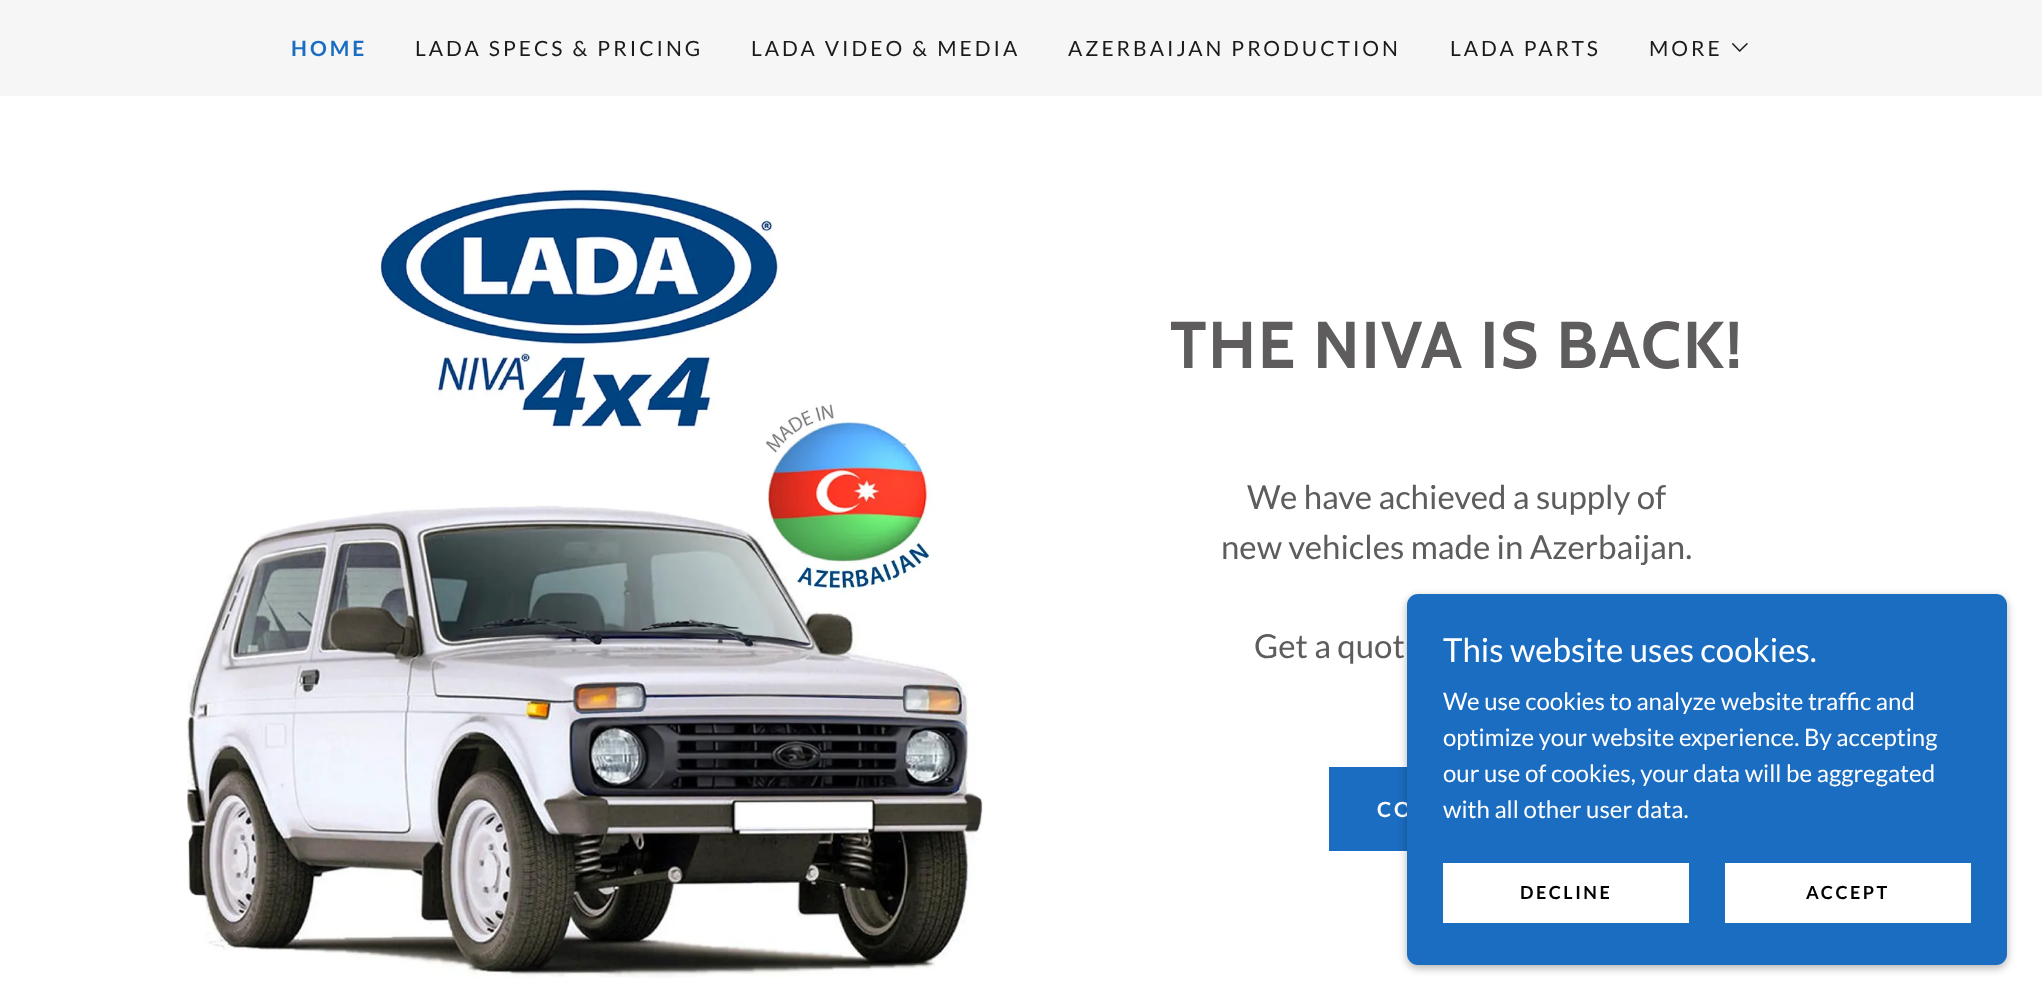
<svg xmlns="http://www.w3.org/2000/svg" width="2042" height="1000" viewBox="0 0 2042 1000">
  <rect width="100%" height="100%" fill="rgb(255,255,255)"/>
  <rect x="0" y="0" width="2042" height="96" fill="rgb(246,246,246)"/>
  <text x="291" y="56" font-family="Lato" font-size="21" font-weight="bold" letter-spacing="3" fill="rgb(27,109,194)">HOME</text>
  <g font-family="Lato" font-size="21" letter-spacing="3" fill="rgb(27,27,27)">
    <text x="415" y="56">LADA SPECS &amp; PRICING</text>
    <text x="751" y="56">LADA VIDEO &amp; MEDIA</text>
    <text x="1068" y="56">AZERBAIJAN PRODUCTION</text>
    <text x="1450" y="56">LADA PARTS</text>
    <text x="1649" y="56">MORE</text>
  </g>
  <image x="1732" y="43" width="16" height="9" href="pic1.png"/>
  <image x="187" y="188" width="796" height="790" href="pic2.png"/>
  <text x="1170" y="368" font-family="Cabin" font-size="66" font-weight="bold" letter-spacing="1.5" fill="rgb(94,92,92)">THE NIVA IS BACK!</text>
  <g font-family="Lato" font-size="33" fill="rgb(94,92,92)">
    <text x="1247" y="509">We have achieved a supply of</text>
    <text x="1221" y="559">new vehicles made in Azerbaijan.</text>
    <text x="1254" y="658">Get a quot</text>
  </g>
  <rect x="1329" y="767" width="78" height="84" fill="rgb(27,109,194)"/>
  <text x="1377" y="817" font-family="Lato" font-size="21" font-weight="bold" letter-spacing="3" fill="rgb(255,255,255)">CO</text>
  <rect x="1407" y="597" width="600" height="371" rx="11" fill="rgba(0,0,0,0.3)" filter="blur(4.5px)"/>
  <rect x="1407" y="594" width="600" height="371" rx="11" fill="rgb(27,109,194)"/>
  <text x="1443" y="662" font-family="Lato" font-size="33" fill="rgb(255,255,255)">This website uses cookies.</text>
  <g font-family="Lato" font-size="24" fill="rgb(255,255,255)">
    <text>
      <tspan x="1443" y="710">We use cookies to analyze website traffic and</tspan>
      <tspan x="1443" y="746">optimize your website experience. By accepting</tspan>
      <tspan x="1443" y="782">our use of cookies, your data will be aggregated</tspan>
      <tspan x="1443" y="818">with all other user data.</tspan>
    </text>
  </g>
  <rect x="1443" y="863" width="246" height="60" fill="rgb(255,255,255)"/>
  <text x="1520" y="899" font-family="Lato" font-size="18" font-weight="bold" letter-spacing="2.5" fill="rgb(0,0,0)">DECLINE</text>
  <rect x="1725" y="863" width="246" height="60" fill="rgb(255,255,255)"/>
  <text x="1806" y="899" font-family="Lato" font-size="18" font-weight="bold" letter-spacing="2.5" fill="rgb(0,0,0)">ACCEPT</text>
</svg>
